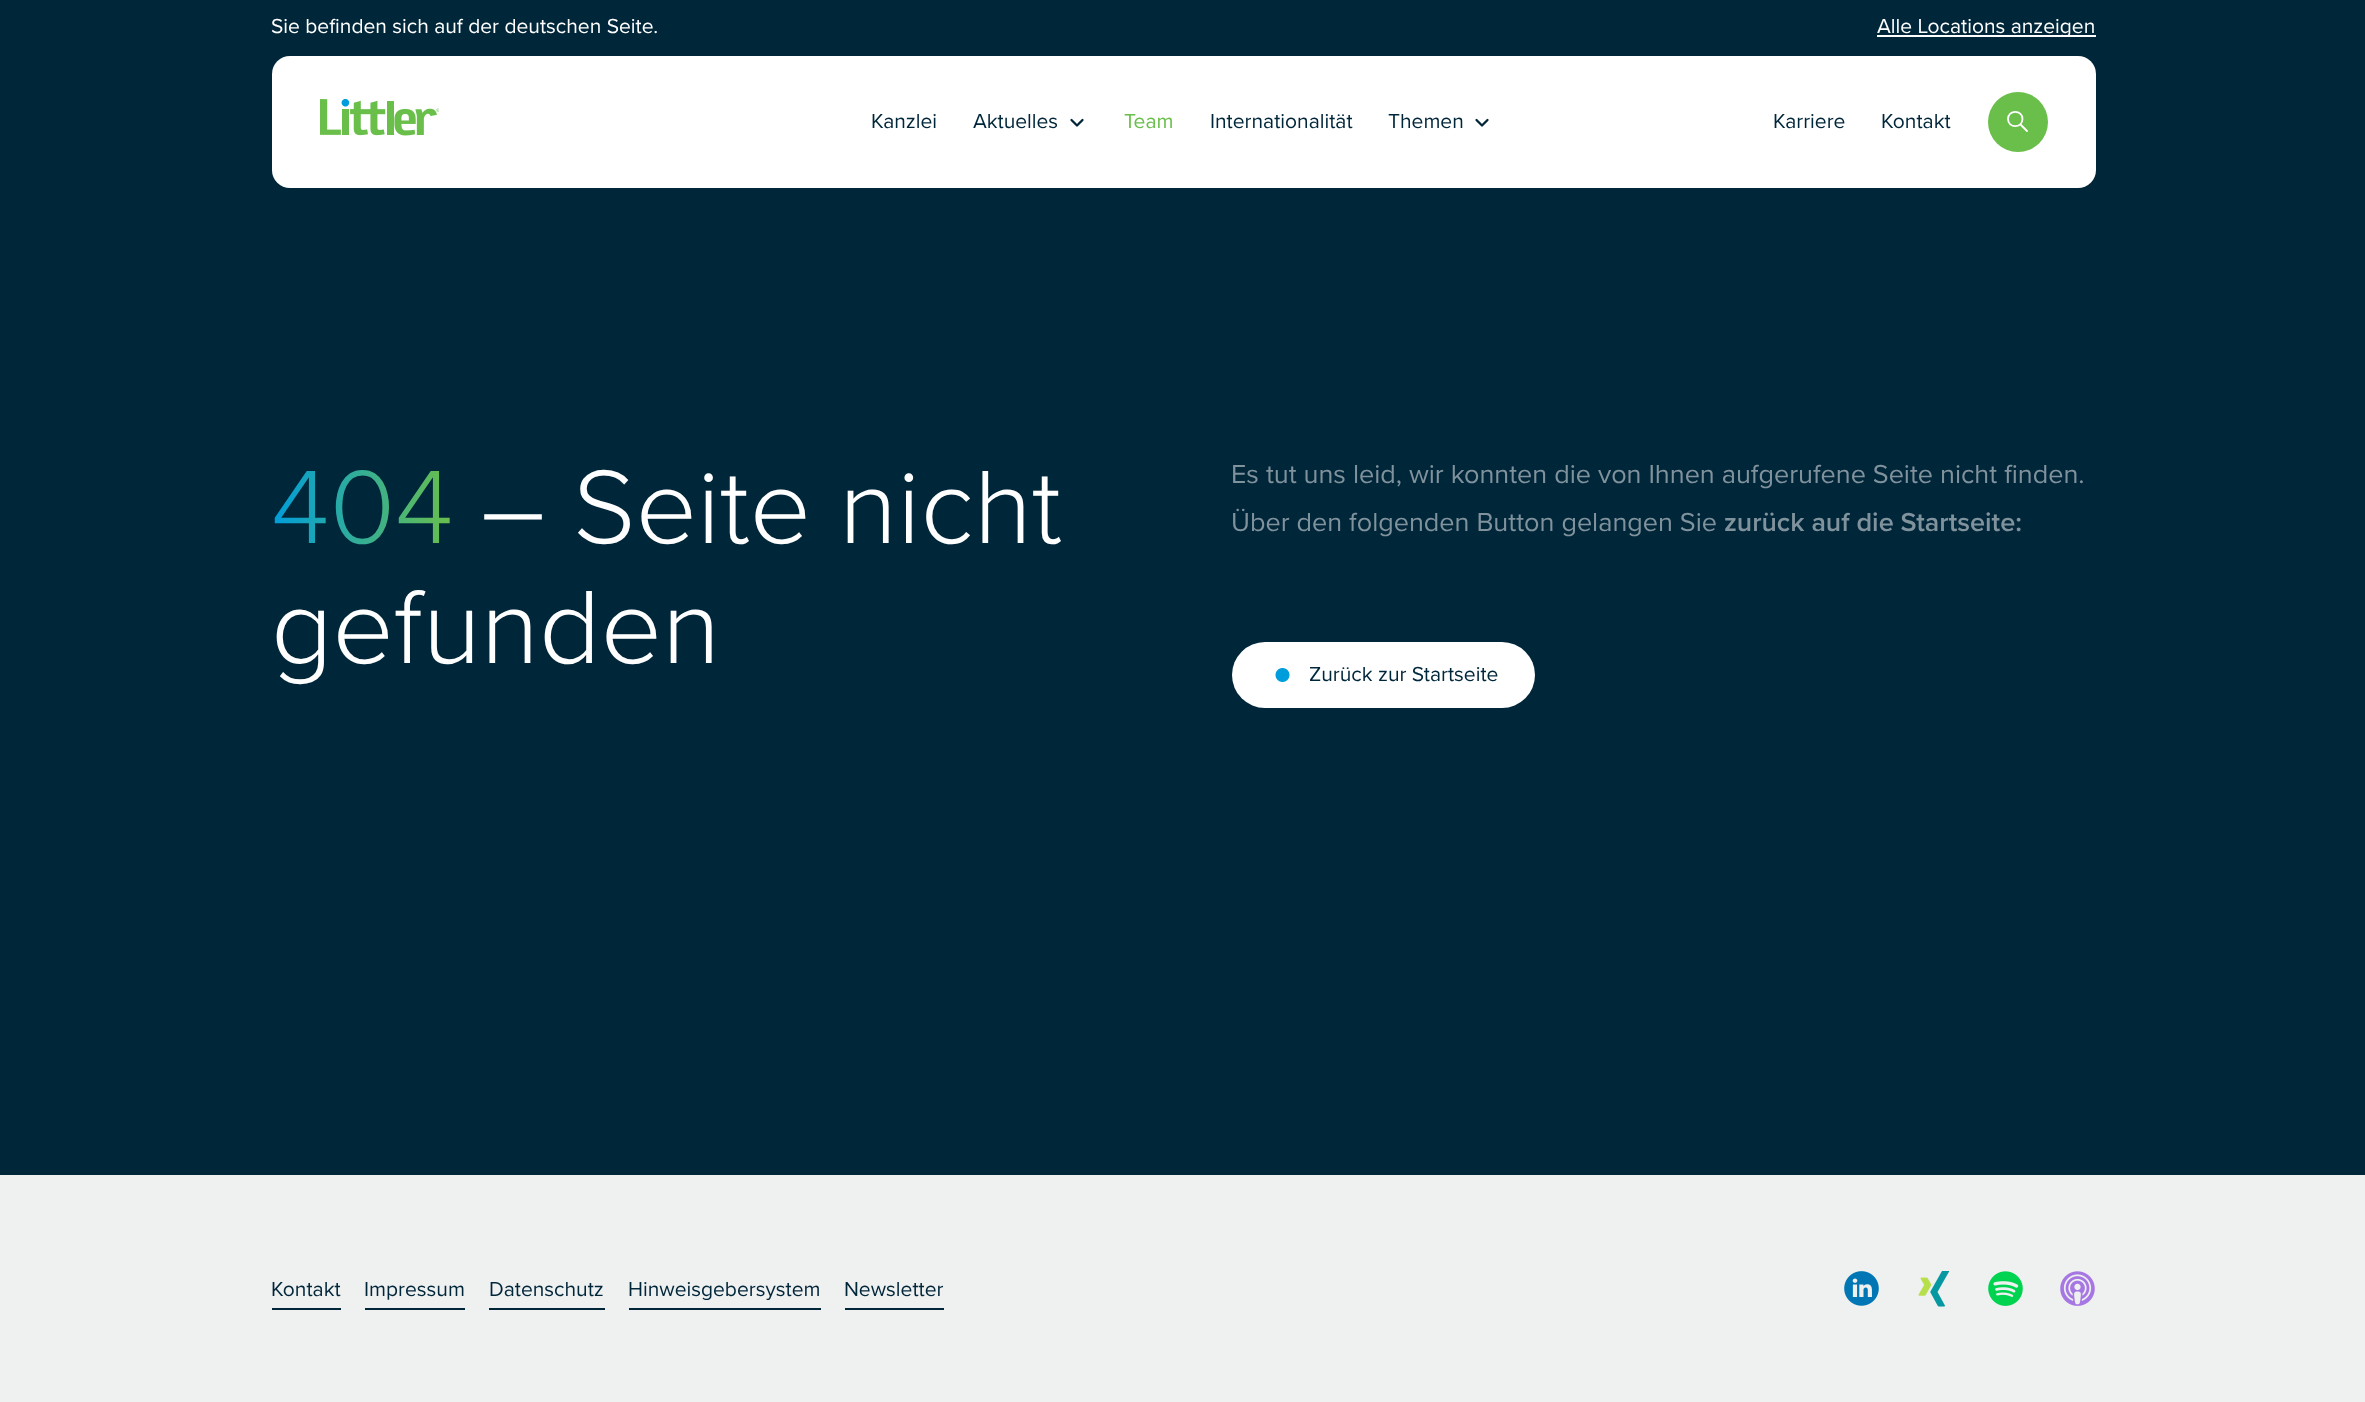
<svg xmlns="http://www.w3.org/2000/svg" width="2365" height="1402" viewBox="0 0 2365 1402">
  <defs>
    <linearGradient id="g1" gradientUnits="userSpaceOnUse" x1="271" y1="509" x2="453" y2="509"><stop offset="0" stop-color="rgb(0,157,220)"/><stop offset="1" stop-color="rgb(106,191,75)"/></linearGradient>
  </defs>
  <rect width="100%" height="100%" fill="rgb(0,38,58)"/>
  <text x="271" y="33" font-family="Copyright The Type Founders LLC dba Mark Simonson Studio" font-size="21" fill="rgb(255,255,255)">Sie befinden sich auf der deutschen Seite.</text>
  <rect x="1877" y="35" width="219" height="2" fill="rgb(255,255,255)"/>
  <text x="1877" y="33" font-family="Copyright The Type Founders LLC dba Mark Simonson Studio" font-size="21" fill="rgb(255,255,255)">Alle Locations anzeigen</text>
  <rect x="272" y="56" width="1824" height="132" rx="18" fill="rgb(255,255,255)"/>
  <image x="320" y="98" width="119" height="38" href="pic1.png"/>
  <g font-family="Copyright The Type Founders LLC dba Mark Simonson Studio" font-size="21" fill="rgb(0,38,58)">
    <text x="871" y="128">Kanzlei</text>
    <text x="973" y="128">Aktuelles</text>
  </g>
  <path d="M1071.5 120L1077 125.5L1082.5 120" fill="none" stroke="rgb(0,38,58)" stroke-width="2.3" stroke-linecap="round" stroke-linejoin="round"/>
  <text x="1124" y="128" font-family="Copyright The Type Founders LLC dba Mark Simonson Studio" font-size="21" fill="rgb(106,191,75)">Team</text>
  <g font-family="Copyright The Type Founders LLC dba Mark Simonson Studio" font-size="21" fill="rgb(0,38,58)">
    <text x="1210" y="128">Internationalität</text>
    <text x="1388" y="128">Themen</text>
  </g>
  <path d="M1476.5 120L1482 125.5L1487.5 120" fill="none" stroke="rgb(0,38,58)" stroke-width="2.3" stroke-linecap="round" stroke-linejoin="round"/>
  <g font-family="Copyright The Type Founders LLC dba Mark Simonson Studio" font-size="21" fill="rgb(0,38,58)">
    <text x="1773" y="128">Karriere</text>
    <text x="1881" y="128">Kontakt</text>
  </g>
  <circle cx="2018" cy="122" r="30" fill="rgb(106,191,75)"/>
  <path d="M2020.5 124.5L2027 131M2022.5 119C2022.5 128.5 2008 128.5 2008 119C2008 109.5 2022.5 109.5 2022.5 119Z" fill="none" stroke="rgb(255,255,255)" stroke-width="1.8" stroke-linecap="round" stroke-linejoin="round"/>
  <text x="271" y="543" font-family="Copyright The Type Founders LLC dba Mark Simonson Studio" font-size="108" font-weight="300" fill="url(#g1)">404</text>
  <g font-family="Copyright The Type Founders LLC dba Mark Simonson Studio" font-size="108" font-weight="300" fill="rgb(255,255,255)">
    <text x="481" y="543">– Seite nicht</text>
    <text x="271" y="663">gefunden</text>
  </g>
  <g font-family="Copyright The Type Founders LLC dba Mark Simonson Studio" font-size="27" fill="rgb(128,146,156)">
    <text>
      <tspan x="1231" y="483">Es tut uns leid, wir konnten die von Ihnen aufgerufene Seite nicht finden.</tspan>
      <tspan x="1231" y="531">Über den folgenden Button gelangen Sie</tspan>
    </text>
  </g>
  <text x="1724" y="531" font-family="Copyright The Type Founders LLC dba Mark Simonson Studio" font-size="27" font-weight="600" fill="rgb(128,146,156)">zurück auf die Startseite:</text>
  <rect x="1232" y="642" width="303" height="66" rx="33" fill="rgb(255,255,255)"/>
  <image x="1275" y="668" width="15" height="14" href="pic2.png"/>
  <text x="1309" y="681" font-family="Copyright The Type Founders LLC dba Mark Simonson Studio" font-size="21" fill="rgb(0,38,58)">Zurück zur Startseite</text>
  <rect x="0" y="1175" width="2365" height="227" fill="rgb(239,240,240)"/>
  <text x="271" y="1296" font-family="Copyright The Type Founders LLC dba Mark Simonson Studio" font-size="21" fill="rgb(0,38,58)">Kontakt</text>
  <rect x="272" y="1308" width="69" height="2" fill="rgb(0,38,58)"/>
  <text x="364" y="1296" font-family="Copyright The Type Founders LLC dba Mark Simonson Studio" font-size="21" fill="rgb(0,38,58)">Impressum</text>
  <rect x="365" y="1308" width="100" height="2" fill="rgb(0,38,58)"/>
  <text x="489" y="1296" font-family="Copyright The Type Founders LLC dba Mark Simonson Studio" font-size="21" fill="rgb(0,38,58)">Datenschutz</text>
  <rect x="489" y="1308" width="116" height="2" fill="rgb(0,38,58)"/>
  <text x="628" y="1296" font-family="Copyright The Type Founders LLC dba Mark Simonson Studio" font-size="21" fill="rgb(0,38,58)">Hinweisgebersystem</text>
  <rect x="629" y="1308" width="192" height="2" fill="rgb(0,38,58)"/>
  <text x="844" y="1296" font-family="Copyright The Type Founders LLC dba Mark Simonson Studio" font-size="21" fill="rgb(0,38,58)">Newsletter</text>
  <rect x="845" y="1308" width="99" height="2" fill="rgb(0,38,58)"/>
  <image x="1844" y="1271" width="35" height="35" href="pic3.png"/>
  <image x="1918" y="1271" width="32" height="36" href="pic4.png"/>
  <image x="1988" y="1271" width="35" height="35" href="pic5.png"/>
  <image x="2060" y="1271" width="35" height="35" href="pic6.png"/>
</svg>
